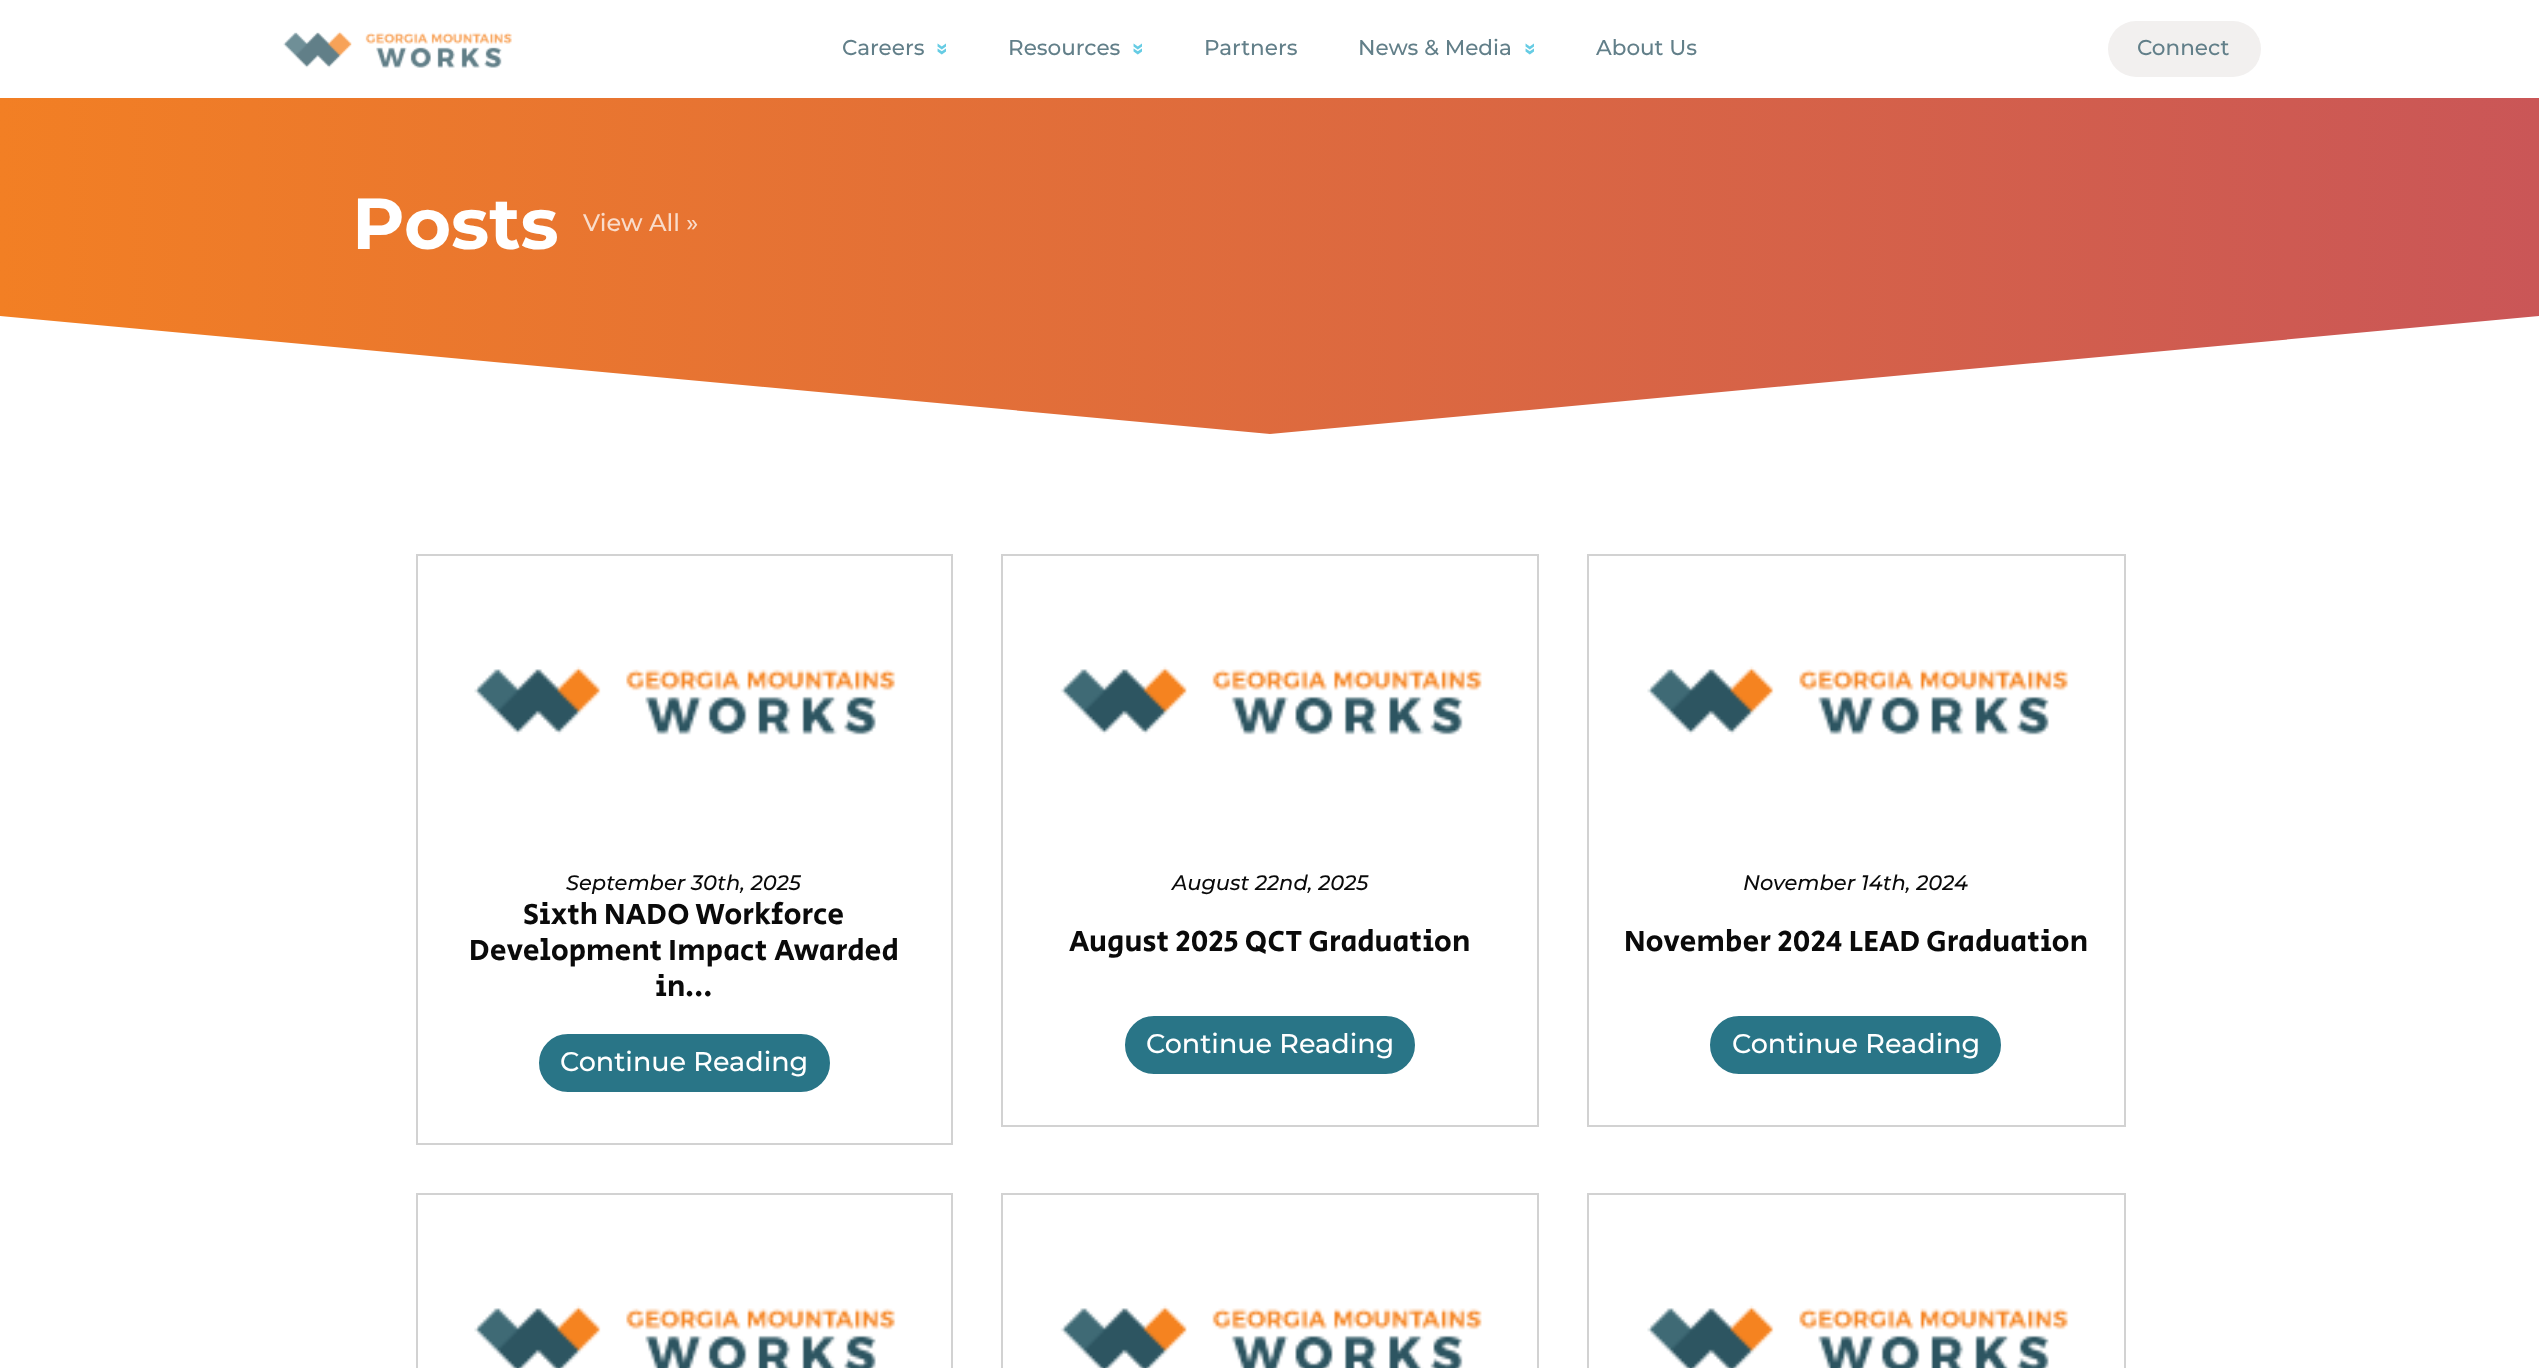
<svg xmlns="http://www.w3.org/2000/svg" width="2539" height="1368" viewBox="0 0 2539 1368">
  <defs>
    <linearGradient id="g1" gradientUnits="userSpaceOnUse" x1="0" y1="266" x2="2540" y2="265"><stop offset="0" stop-color="rgb(242,127,36)"/><stop offset="1" stop-color="rgb(202,86,87)"/></linearGradient>
  </defs>
  <rect width="100%" height="100%" fill="rgb(255,255,255)"/>
  <image x="283" y="31" width="229" height="37" href="pic1.png"/>
  <text x="842" y="55" font-family="Montserrat" font-size="21.5" font-weight="500" fill="rgb(98,127,137)">Careers</text>
  <text x="936" y="43" transform="rotate(90 936 43)" font-family="Montserrat" font-size="21.5" font-weight="bold" fill="rgb(102,204,228)">»</text>
  <text x="1008" y="55" font-family="Montserrat" font-size="21.5" font-weight="500" fill="rgb(98,127,137)">Resources</text>
  <text x="1132" y="43" transform="rotate(90 1132 43)" font-family="Montserrat" font-size="21.5" font-weight="bold" fill="rgb(102,204,228)">»</text>
  <g font-family="Montserrat" font-size="21.5" font-weight="500" fill="rgb(98,127,137)">
    <text x="1204" y="55">Partners</text>
    <text x="1358" y="55">News &amp; Media</text>
  </g>
  <text x="1524" y="43" transform="rotate(90 1524 43)" font-family="Montserrat" font-size="21.5" font-weight="bold" fill="rgb(102,204,228)">»</text>
  <text x="1596" y="55" font-family="Montserrat" font-size="21.5" font-weight="500" fill="rgb(98,127,137)">About Us</text>
  <rect x="2108" y="21" width="153" height="56" rx="28" fill="rgb(242,240,239)"/>
  <text x="2137" y="55" font-family="Montserrat" font-size="21.5" font-weight="500" fill="rgb(98,127,137)">Connect</text>
  <path d="M0 98H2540V316L1270 434L0 316Z" fill="url(#g1)"/>
  <text x="352" y="249" font-family="Montserrat" font-size="72" font-weight="bold" fill="rgb(255,255,255)">Posts</text>
  <text x="583" y="231" font-family="Montserrat" font-size="24" font-weight="500" fill="rgb(249,220,203)">View All »</text>
  <rect x="417" y="555" width="535" height="589" fill="none" stroke="rgb(210,210,210)" stroke-width="2"/>
  <image x="474" y="666" width="422" height="69" href="pic2.png"/>
  <text x="566" y="890" font-family="Montserrat" font-size="21" font-weight="500" font-style="italic" fill="rgb(10,10,10)">September 30th, 2025</text>
  <g font-family="Secular One" font-size="30" fill="rgb(10,10,10)">
    <text x="523" y="924">Sixth NADO Workforce</text>
    <text x="469" y="960">Development Impact Awarded</text>
    <text x="655" y="996">in…</text>
  </g>
  <rect x="537.5" y="1032.5" width="294" height="61" rx="30.5" fill="rgb(41,117,135)" stroke="rgb(255,255,255)" stroke-width="3"/>
  <text x="560" y="1071" font-family="Montserrat" font-size="27" font-weight="500" fill="rgb(255,255,255)">Continue Reading</text>
  <rect x="1002" y="555" width="536" height="571" fill="none" stroke="rgb(210,210,210)" stroke-width="2"/>
  <image x="1060" y="666" width="422" height="69" href="pic3.png"/>
  <text x="1172" y="890" font-family="Montserrat" font-size="21" font-weight="500" font-style="italic" fill="rgb(10,10,10)">August 22nd, 2025</text>
  <text x="1069" y="951" font-family="Secular One" font-size="30" fill="rgb(10,10,10)">August 2025 QCT Graduation</text>
  <rect x="1123.5" y="1014.5" width="293" height="61" rx="30.5" fill="rgb(41,117,135)" stroke="rgb(255,255,255)" stroke-width="3"/>
  <text x="1146" y="1053" font-family="Montserrat" font-size="27" font-weight="500" fill="rgb(255,255,255)">Continue Reading</text>
  <rect x="1588" y="555" width="537" height="571" fill="none" stroke="rgb(210,210,210)" stroke-width="2"/>
  <image x="1647" y="666" width="422" height="69" href="pic2.png"/>
  <text x="1743" y="890" font-family="Montserrat" font-size="21" font-weight="500" font-style="italic" fill="rgb(10,10,10)">November 14th, 2024</text>
  <text x="1624" y="951" font-family="Secular One" font-size="30" fill="rgb(10,10,10)">November 2024 LEAD Graduation</text>
  <rect x="1708.5" y="1014.5" width="294" height="61" rx="30.5" fill="rgb(41,117,135)" stroke="rgb(255,255,255)" stroke-width="3"/>
  <text x="1732" y="1053" font-family="Montserrat" font-size="27" font-weight="500" fill="rgb(255,255,255)">Continue Reading</text>
  <rect x="417" y="1194" width="535" height="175" fill="none" stroke="rgb(210,210,210)" stroke-width="2"/>
  <image x="474" y="1305" width="422" height="63" href="pic4.png"/>
  <rect x="1002" y="1194" width="536" height="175" fill="none" stroke="rgb(210,210,210)" stroke-width="2"/>
  <image x="1060" y="1305" width="422" height="63" href="pic5.png"/>
  <rect x="1588" y="1194" width="537" height="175" fill="none" stroke="rgb(210,210,210)" stroke-width="2"/>
  <image x="1647" y="1305" width="422" height="63" href="pic4.png"/>
</svg>
